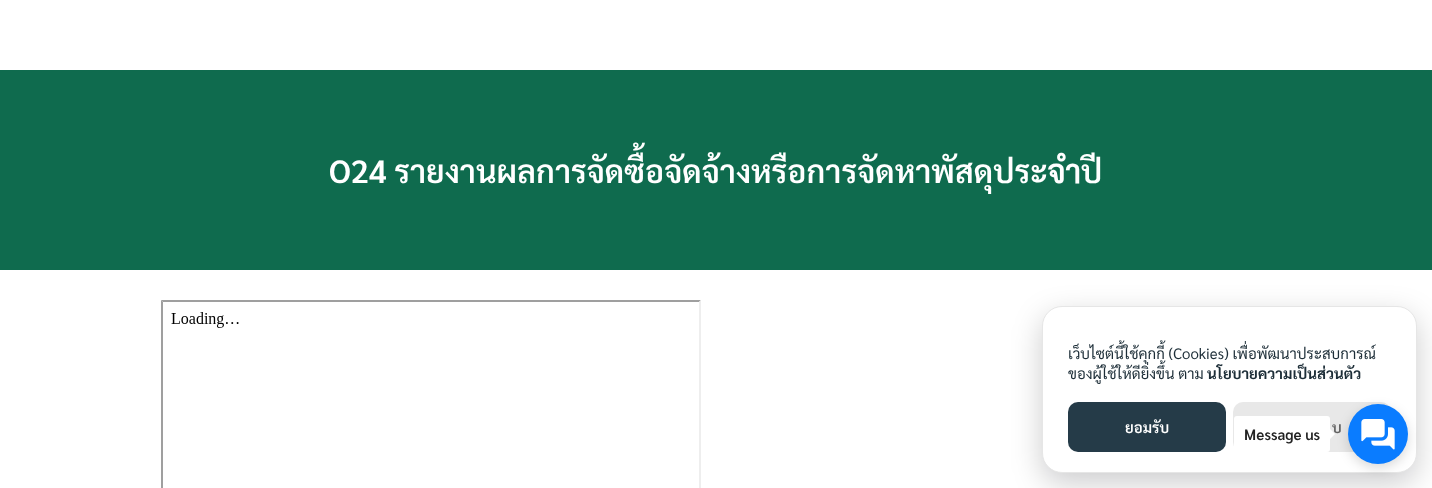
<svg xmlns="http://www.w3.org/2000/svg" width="1432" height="488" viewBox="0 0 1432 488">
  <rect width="100%" height="100%" fill="rgb(255,255,255)"/>
  <rect x="0" y="70" width="1432" height="200" fill="rgb(15,107,78)"/>
  <text x="329" y="183" font-family="Sarabun" font-size="32" font-weight="600" fill="rgb(255,255,255)">O24 รายงานผลการจัดซื้อจัดจ้างหรือการจัดหาพัสดุประจำปี</text>
  <path d="M161 300H701L699 302H163Z" fill="rgb(159,159,159)"/>
  <path d="M161 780V300L163 302V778Z" fill="rgb(159,159,159)"/>
  <image x="171" y="312" width="68" height="16" href="pic1.png"/>
  <path d="M701 300V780L699 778V302Z" fill="rgb(238,238,238)"/>
  <rect x="1042" y="316" width="375" height="167" rx="20" fill="rgba(2,2,3,0.2)" filter="blur(15px)"/>
  <rect x="1042.5" y="306.5" width="374" height="166" rx="19.5" fill="rgb(255,255,255)" stroke="rgb(230,230,230)"/>
  <g font-family="Sarabun" font-size="15" fill="rgb(29,46,56)">
    <text>
      <tspan x="1068" y="359">เว็บไซต์นี้ใช้คุกกี้ (Cookies) เพื่อพัฒนาประสบการณ์</tspan>
      <tspan x="1068" y="379">ของผู้ใช้ให้ดียิ่งขึ้น ตาม</tspan>
    </text>
  </g>
  <text x="1207" y="379" font-family="Sarabun" font-size="15" font-weight="bold" fill="rgb(29,46,56)">นโยบายความเป็นส่วนตัว</text>
  <rect x="1068" y="402" width="158" height="50" rx="10" fill="rgb(37,59,72)"/>
  <text x="1125" y="433" font-family="Sarabun" font-size="15" font-weight="600" fill="rgb(255,255,255)">ยอมรับ</text>
  <rect x="1233" y="402" width="158" height="50" rx="10" fill="rgb(232,232,232)"/>
  <text x="1332" y="433" font-family="Sarabun" font-size="15" font-weight="600" fill="rgb(99,99,99)">บ</text>
  <rect x="1348" y="408" width="60" height="60" rx="30" fill="rgba(0,0,0,0.15)" filter="blur(6px)"/>
  <circle cx="1378" cy="434" r="30" fill="rgb(10,124,255)"/>
  <rect x="1234" y="416" width="96" height="36" rx="3" fill="rgb(255,255,255)"/>
  <text x="1244" y="440" font-family="Sarabun" font-size="15" font-weight="600" fill="rgb(34,34,34)">Message us</text>
  <path d="M1330 439V429L1335 434Z" fill="rgb(255,255,255)"/>
  <image x="1361" y="419" width="34" height="31" href="pic2.png"/>
</svg>
